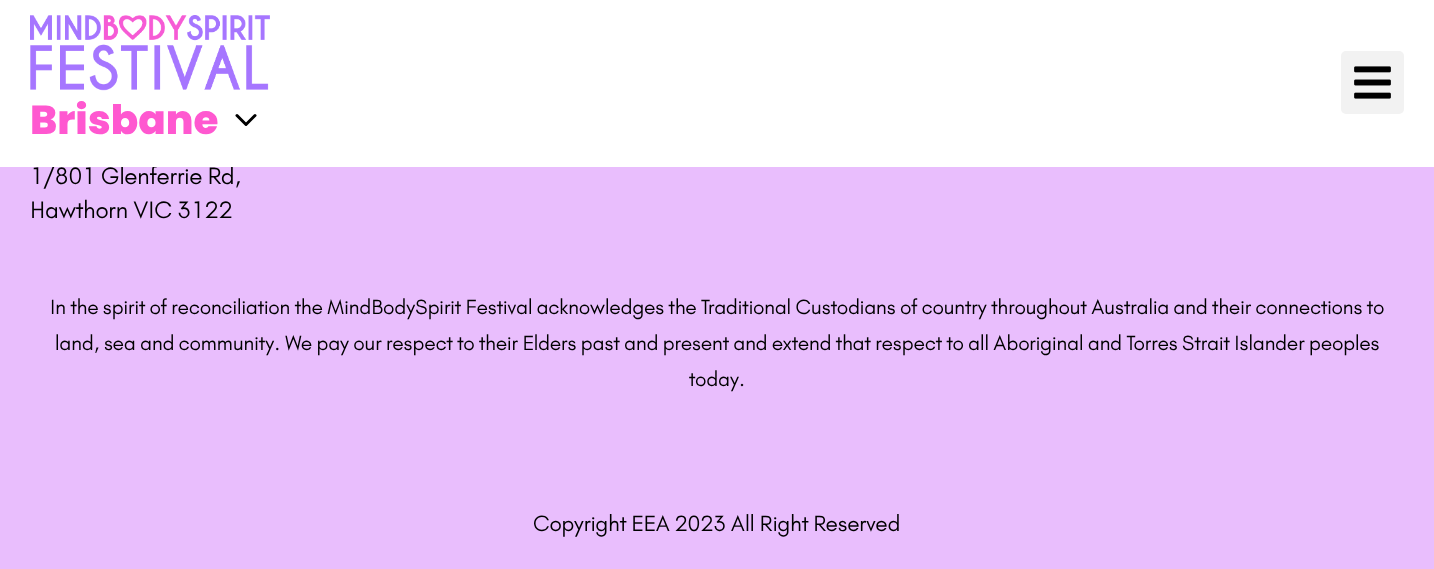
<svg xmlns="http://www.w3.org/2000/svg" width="1434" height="569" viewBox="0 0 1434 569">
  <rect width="100%" height="100%" fill="rgb(233,190,253)"/>
  <text x="30" y="184" font-family="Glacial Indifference" font-size="22.5" fill="rgb(0,0,0)">1/801 Glenferrie Rd,</text>
  <rect x="0" y="0" width="1434" height="167" fill="rgb(255,255,255)"/>
  <rect x="1341" y="51" width="63" height="63" rx="5" fill="rgb(242,242,242)"/>
  <image x="1354" y="66" width="37" height="33" href="pic1.png"/>
  <image x="30" y="15" width="240" height="76" href="pic2.png"/>
  <path d="M237 115.5L246 124.5L255 115.5" fill="none" stroke="rgb(0,0,0)" stroke-width="3" stroke-linecap="round" stroke-linejoin="round"/>
  <text x="30" y="134" font-family="Poppins" font-size="40.5" font-weight="800" fill="rgb(255,88,208)">Brisbane</text>
  <text x="30" y="218" font-family="Glacial Indifference" font-size="22.5" fill="rgb(0,0,0)">Hawthorn VIC 3122</text>
  <g font-family="Glacial Indifference" font-size="19.5" fill="rgb(0,0,0)">
    <text x="50" y="314">In the spirit of reconciliation the MindBodySpirit Festival acknowledges the Traditional Custodians of country throughout Australia and their connections to</text>
    <text x="55" y="350">land, sea and community. We pay our respect to their Elders past and present and extend that respect to all Aboriginal and Torres Strait Islander peoples</text>
    <text x="689" y="386">today.</text>
  </g>
  <text x="533" y="531" font-family="Glacial Indifference" font-size="21" fill="rgb(0,0,0)">Copyright EEA 2023 All Right Reserved</text>
</svg>
